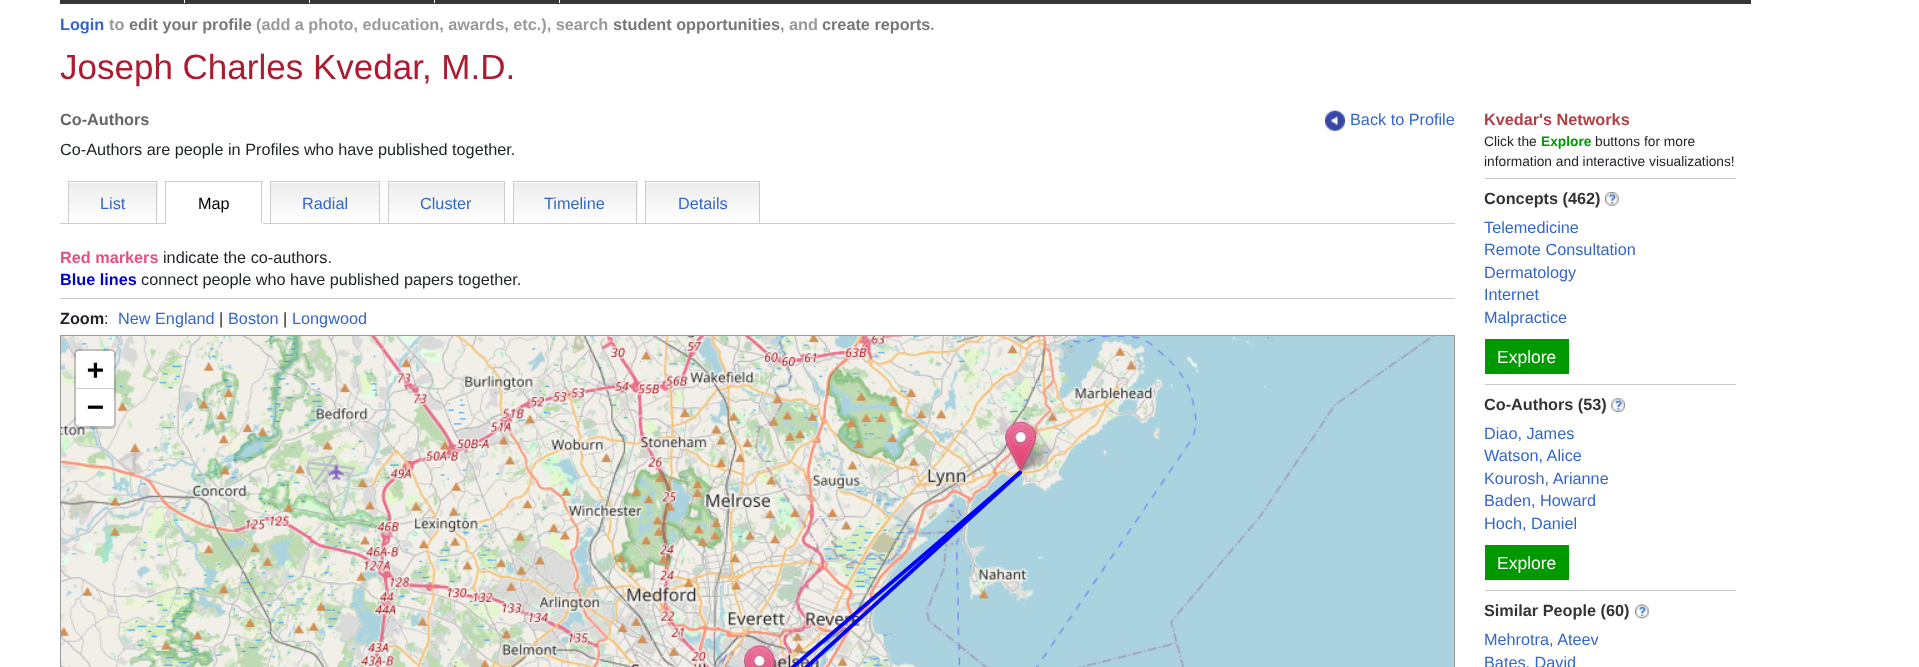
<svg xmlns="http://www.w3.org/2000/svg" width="1919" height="667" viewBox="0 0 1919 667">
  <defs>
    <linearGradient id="g1" gradientUnits="userSpaceOnUse" x1="113" y1="183" x2="113" y2="223"><stop offset="0" stop-color="rgb(237,237,237)"/><stop offset="1" stop-color="rgb(255,255,255)"/></linearGradient>
    <linearGradient id="g2" gradientUnits="userSpaceOnUse" x1="325" y1="183" x2="325" y2="223"><stop offset="0" stop-color="rgb(237,237,237)"/><stop offset="1" stop-color="rgb(255,255,255)"/></linearGradient>
    <linearGradient id="g3" gradientUnits="userSpaceOnUse" x1="446" y1="183" x2="446" y2="223"><stop offset="0" stop-color="rgb(237,237,237)"/><stop offset="1" stop-color="rgb(255,255,255)"/></linearGradient>
    <linearGradient id="g4" gradientUnits="userSpaceOnUse" x1="575" y1="183" x2="575" y2="223"><stop offset="0" stop-color="rgb(237,237,237)"/><stop offset="1" stop-color="rgb(255,255,255)"/></linearGradient>
    <linearGradient id="g5" gradientUnits="userSpaceOnUse" x1="703" y1="183" x2="703" y2="223"><stop offset="0" stop-color="rgb(237,237,237)"/><stop offset="1" stop-color="rgb(255,255,255)"/></linearGradient>
  </defs>
  <rect width="100%" height="100%" fill="rgb(255,255,255)"/>
  <rect x="60" y="0" width="1691" height="4" fill="rgb(56,55,55)"/>
  <rect x="184" y="0" width="1" height="3" fill="rgb(255,255,255)"/>
  <rect x="309" y="0" width="1" height="3" fill="rgb(255,255,255)"/>
  <rect x="434" y="0" width="1" height="3" fill="rgb(255,255,255)"/>
  <rect x="559" y="0" width="1" height="3" fill="rgb(255,255,255)"/>
  <text x="60" y="30" font-family="Liberation Sans" font-size="16.25" font-weight="bold" fill="rgb(51,102,204)">Login</text>
  <text x="109" y="30" font-family="Liberation Sans" font-size="16.25" font-weight="bold" fill="rgb(153,153,153)">to</text>
  <text x="129" y="30" font-family="Liberation Sans" font-size="16.25" font-weight="bold" fill="rgb(119,119,119)">edit your profile</text>
  <text x="256" y="30" font-family="Liberation Sans" font-size="16.25" font-weight="bold" fill="rgb(153,153,153)">(add a photo, education, awards, etc.), search</text>
  <text x="613" y="30" font-family="Liberation Sans" font-size="16.25" font-weight="bold" fill="rgb(119,119,119)">student opportunities</text>
  <text x="780" y="30" font-family="Liberation Sans" font-size="16.25" font-weight="bold" fill="rgb(153,153,153)">, and</text>
  <text x="822" y="30" font-family="Liberation Sans" font-size="16.25" font-weight="bold" fill="rgb(119,119,119)">create reports</text>
  <text x="930" y="30" font-family="Liberation Sans" font-size="16.25" font-weight="bold" fill="rgb(153,153,153)">.</text>
  <text x="60" y="79" font-family="Liberation Sans" font-size="35" fill="rgb(172,27,48)">Joseph Charles Kvedar, M.D.</text>
  <text x="60" y="125" font-family="Liberation Sans" font-size="16.25" font-weight="bold" fill="rgb(102,102,102)">Co-Authors</text>
  <image x="1325" y="110" width="20" height="21" href="pic1.png"/>
  <text x="1350" y="125" font-family="Liberation Sans" font-size="16.25" fill="rgb(51,102,204)">Back to Profile</text>
  <text x="60" y="155" font-family="Liberation Sans" font-size="16.25" fill="rgb(33,37,41)">Co-Authors are people in Profiles who have published together.</text>
  <rect x="60" y="223" width="1395" height="1" fill="rgb(204,204,204)"/>
  <rect x="69" y="183" width="89" height="34" fill="url(#g1)"/>
  <rect x="68" y="181" width="90" height="1" fill="rgb(204,204,204)"/>
  <rect x="156" y="181" width="1" height="42" fill="rgb(204,204,204)"/>
  <rect x="68" y="181" width="1" height="42" fill="rgb(204,204,204)"/>
  <text x="100" y="209" font-family="Liberation Sans" font-size="16.25" fill="rgb(51,102,204)">List</text>
  <rect x="165" y="181" width="98" height="1" fill="rgb(204,204,204)"/>
  <rect x="261" y="181" width="1" height="43" fill="rgb(204,204,204)"/>
  <rect x="165" y="223" width="98" height="1" fill="rgb(255,255,255)"/>
  <rect x="165" y="181" width="1" height="43" fill="rgb(204,204,204)"/>
  <text x="198" y="209" font-family="Liberation Sans" font-size="16.25" fill="rgb(0,0,0)">Map</text>
  <rect x="271" y="183" width="108" height="34" fill="url(#g2)"/>
  <rect x="270" y="181" width="110" height="1" fill="rgb(204,204,204)"/>
  <rect x="379" y="181" width="1" height="42" fill="rgb(204,204,204)"/>
  <rect x="270" y="181" width="1" height="42" fill="rgb(204,204,204)"/>
  <text x="302" y="209" font-family="Liberation Sans" font-size="16.25" fill="rgb(51,102,204)">Radial</text>
  <rect x="389" y="183" width="115" height="34" fill="url(#g3)"/>
  <rect x="388" y="181" width="117" height="1" fill="rgb(204,204,204)"/>
  <rect x="504" y="181" width="1" height="42" fill="rgb(204,204,204)"/>
  <rect x="388" y="181" width="1" height="42" fill="rgb(204,204,204)"/>
  <text x="420" y="209" font-family="Liberation Sans" font-size="16.25" fill="rgb(51,102,204)">Cluster</text>
  <rect x="514" y="183" width="124" height="34" fill="url(#g4)"/>
  <rect x="513" y="181" width="125" height="1" fill="rgb(204,204,204)"/>
  <rect x="636" y="181" width="1" height="42" fill="rgb(204,204,204)"/>
  <rect x="513" y="181" width="1" height="42" fill="rgb(204,204,204)"/>
  <text x="544" y="209" font-family="Liberation Sans" font-size="16.25" fill="rgb(51,102,204)">Timeline</text>
  <rect x="646" y="183" width="113" height="34" fill="url(#g5)"/>
  <rect x="645" y="181" width="115" height="1" fill="rgb(204,204,204)"/>
  <rect x="759" y="181" width="1" height="42" fill="rgb(204,204,204)"/>
  <rect x="645" y="181" width="1" height="42" fill="rgb(204,204,204)"/>
  <text x="678" y="209" font-family="Liberation Sans" font-size="16.25" fill="rgb(51,102,204)">Details</text>
  <text x="60" y="263" font-family="Liberation Sans" font-size="16.25" font-weight="bold" fill="rgb(229,81,127)">Red markers</text>
  <text x="163" y="263" font-family="Liberation Sans" font-size="16.25" fill="rgb(33,37,41)">indicate the co-authors.</text>
  <text x="60" y="285" font-family="Liberation Sans" font-size="16.25" font-weight="bold" fill="rgb(0,0,204)">Blue lines</text>
  <text x="141" y="285" font-family="Liberation Sans" font-size="16.25" fill="rgb(33,37,41)">connect people who have published papers together.</text>
  <rect x="60" y="298" width="1395" height="1" fill="rgb(200,201,202)"/>
  <text x="60" y="324" font-family="Liberation Sans" font-size="16.25" font-weight="bold" fill="rgb(33,37,41)">Zoom</text>
  <text x="104" y="324" font-family="Liberation Sans" font-size="16.25" fill="rgb(33,37,41)">:</text>
  <text x="118" y="324" font-family="Liberation Sans" font-size="16.25" fill="rgb(51,102,204)">New England</text>
  <text x="219" y="324" font-family="Liberation Sans" font-size="16.25" fill="rgb(33,37,41)">|</text>
  <text x="228" y="324" font-family="Liberation Sans" font-size="16.25" fill="rgb(51,102,204)">Boston</text>
  <text x="283" y="324" font-family="Liberation Sans" font-size="16.25" fill="rgb(33,37,41)">|</text>
  <text x="292" y="324" font-family="Liberation Sans" font-size="16.25" fill="rgb(51,102,204)">Longwood</text>
  <rect x="60.5" y="335.5" width="1394" height="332" fill="none" stroke="rgb(153,153,153)"/>
  <image x="61" y="336" width="125" height="246" href="pic2.png"/>
  <image x="186" y="336" width="320" height="246" href="pic3.png"/>
  <image x="506" y="336" width="320" height="246" href="pic4.png"/>
  <image x="826" y="336" width="320" height="246" href="pic5.png"/>
  <image x="1146" y="336" width="308" height="246" href="pic6.png"/>
  <image x="61" y="582" width="125" height="85" href="pic7.png"/>
  <image x="186" y="582" width="320" height="85" href="pic8.png"/>
  <image x="506" y="582" width="320" height="85" href="pic9.png"/>
  <image x="826" y="582" width="320" height="85" href="pic10.png"/>
  <image x="1146" y="582" width="308" height="85" href="pic11.png"/>
  <image x="790" y="470" width="232" height="197" href="pic16.png"/>
  <image x="1016" y="437" width="38" height="36" href="pic14.png"/>
  <image x="1005" y="420" width="32" height="52" href="pic12.png"/>
  <image x="772" y="660" width="16" height="7" href="pic15.png"/>
  <image x="744" y="645" width="31" height="22" href="pic13.png"/>
  <rect x="75.5" y="350.5" width="39" height="77" rx="3.5" fill="none" stroke="rgba(0,0,0,0.2)" stroke-width="3"/>
  <path d="M78.5 351H111.5C113 351 114 352 114 353.5V389H76V353.5C76 352 77 351 78.5 351Z" fill="rgb(255,255,255)"/>
  <rect x="76" y="388" width="38" height="1" fill="rgb(204,204,204)"/>
  <text x="87" y="379" font-family="DejaVu Sans Mono" font-size="28" font-weight="bold" fill="rgb(0,0,0)">+</text>
  <path d="M76 389H114V423.5C114 425 113 426 111.5 426H78.5C77 426 76 425 76 423.5Z" fill="rgb(255,255,255)"/>
  <text x="87" y="416" font-family="DejaVu Sans Mono" font-size="28" font-weight="bold" fill="rgb(0,0,0)">−</text>
  <text x="1484" y="125" font-family="Liberation Sans" font-size="16.25" font-weight="bold" fill="rgb(178,63,69)">Kvedar's Networks</text>
  <text x="1484" y="146" font-family="Liberation Sans" font-size="13.75" fill="rgb(33,37,41)">Click the</text>
  <text x="1541" y="146" font-family="Liberation Sans" font-size="13.75" font-weight="bold" fill="rgb(0,153,0)">Explore</text>
  <g font-family="Liberation Sans" font-size="13.75" fill="rgb(33,37,41)">
    <text x="1595" y="146">buttons for more</text>
    <text x="1484" y="166">information and interactive visualizations!</text>
  </g>
  <rect x="1485" y="178" width="251" height="1" fill="rgb(200,201,202)"/>
  <text x="1484" y="204" font-family="Liberation Sans" font-size="16.25" font-weight="bold" fill="rgb(51,51,51)">Concepts (462)</text>
  <image x="1605" y="192" width="14" height="14" href="pic17.png"/>
  <g font-family="Liberation Sans" font-size="16.25" fill="rgb(51,102,204)">
    <text>
      <tspan x="1484" y="233">Telemedicine</tspan>
      <tspan x="1484" y="255">Remote Consultation</tspan>
      <tspan x="1484" y="278">Dermatology</tspan>
      <tspan x="1484" y="300">Internet</tspan>
      <tspan x="1484" y="323">Malpractice</tspan>
    </text>
  </g>
  <rect x="1485" y="339" width="84" height="35" fill="rgb(0,153,0)"/>
  <text x="1497" y="363" font-family="Liberation Sans" font-size="17.5" fill="rgb(255,255,255)">Explore</text>
  <rect x="1485" y="384" width="251" height="1" fill="rgb(200,201,202)"/>
  <text x="1484" y="410" font-family="Liberation Sans" font-size="16.25" font-weight="bold" fill="rgb(51,51,51)">Co-Authors (53)</text>
  <image x="1611" y="398" width="14" height="14" href="pic18.png"/>
  <g font-family="Liberation Sans" font-size="16.25" fill="rgb(51,102,204)">
    <text>
      <tspan x="1484" y="439">Diao, James</tspan>
      <tspan x="1484" y="461">Watson, Alice</tspan>
      <tspan x="1484" y="484">Kourosh, Arianne</tspan>
      <tspan x="1484" y="506">Baden, Howard</tspan>
      <tspan x="1484" y="529">Hoch, Daniel</tspan>
    </text>
  </g>
  <rect x="1485" y="545" width="84" height="35" fill="rgb(0,153,0)"/>
  <text x="1497" y="569" font-family="Liberation Sans" font-size="17.5" fill="rgb(255,255,255)">Explore</text>
  <rect x="1485" y="590" width="251" height="1" fill="rgb(200,201,202)"/>
  <text x="1484" y="616" font-family="Liberation Sans" font-size="16.25" font-weight="bold" fill="rgb(51,51,51)">Similar People (60)</text>
  <image x="1635" y="604" width="14" height="15" href="pic19.png"/>
  <g font-family="Liberation Sans" font-size="16.25" fill="rgb(51,102,204)">
    <text>
      <tspan x="1484" y="645">Mehrotra, Ateev</tspan>
      <tspan x="1484" y="668">Bates, David</tspan>
    </text>
  </g>
</svg>
